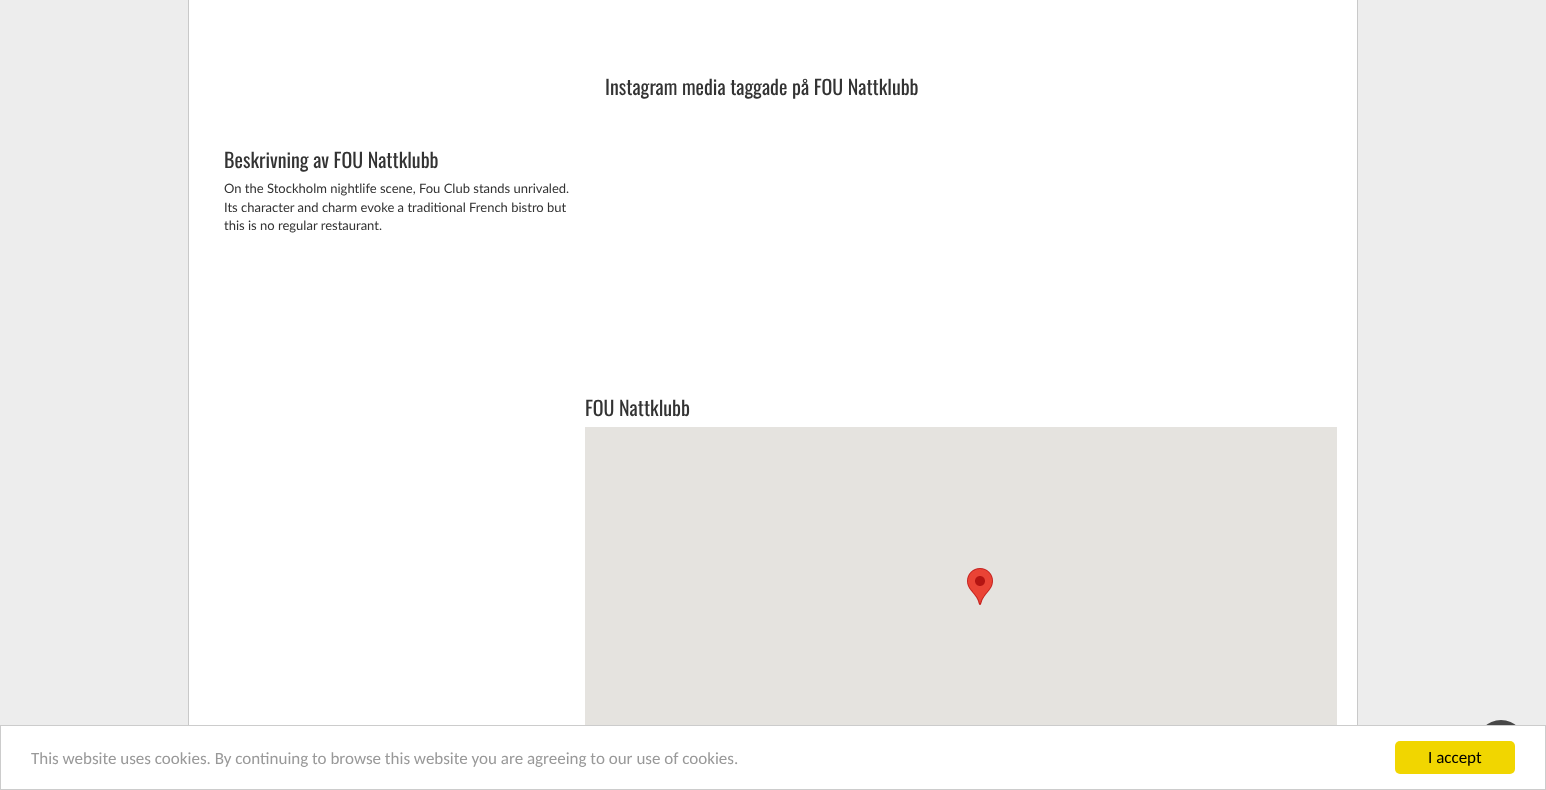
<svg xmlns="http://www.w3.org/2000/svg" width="1546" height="790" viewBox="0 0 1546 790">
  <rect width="100%" height="100%" fill="rgb(237,237,237)"/>
  <rect x="189" y="0" width="1168" height="725" fill="rgb(255,255,255)"/>
  <rect x="188.5" y="-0.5" width="1169" height="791" fill="none" stroke="rgb(201,201,201)"/>
  <text x="224" y="168" font-family="Oswald" font-size="20" fill="rgb(51,51,51)">Beskrivning av FOU Nattklubb</text>
  <g font-family="Lato" font-size="13" fill="rgb(51,51,51)">
    <text>
      <tspan x="224" y="193">On the Stockholm nightlife scene, Fou Club stands unrivaled.</tspan>
      <tspan x="224" y="212">Its character and charm evoke a traditional French bistro but</tspan>
      <tspan x="224" y="230">this is no regular restaurant.</tspan>
    </text>
  </g>
  <g font-family="Oswald" font-size="20" fill="rgb(51,51,51)">
    <text x="605" y="95">Instagram media taggade på FOU Nattklubb</text>
    <text x="585" y="416">FOU Nattklubb</text>
  </g>
  <rect x="585" y="427" width="752" height="298" fill="rgb(229,227,223)"/>
  <image x="967" y="568" width="26" height="37" href="pic1.png"/>
  <circle cx="1501" cy="745" r="25" fill="rgb(71,71,71)"/>
  <rect x="0.5" y="725.5" width="1545" height="64" fill="rgb(255,255,255)" stroke="rgb(204,204,204)"/>
  <text x="31" y="764" font-family="Carlito" font-size="17" fill="rgb(153,153,153)">This website uses cookies. By continuing to browse this website you are agreeing to our use of cookies.</text>
  <rect x="1395" y="741" width="120" height="33" rx="5" fill="rgb(241,214,0)"/>
  <text x="1428" y="763" font-family="Carlito" font-size="17" fill="rgb(0,0,0)">I accept</text>
</svg>
